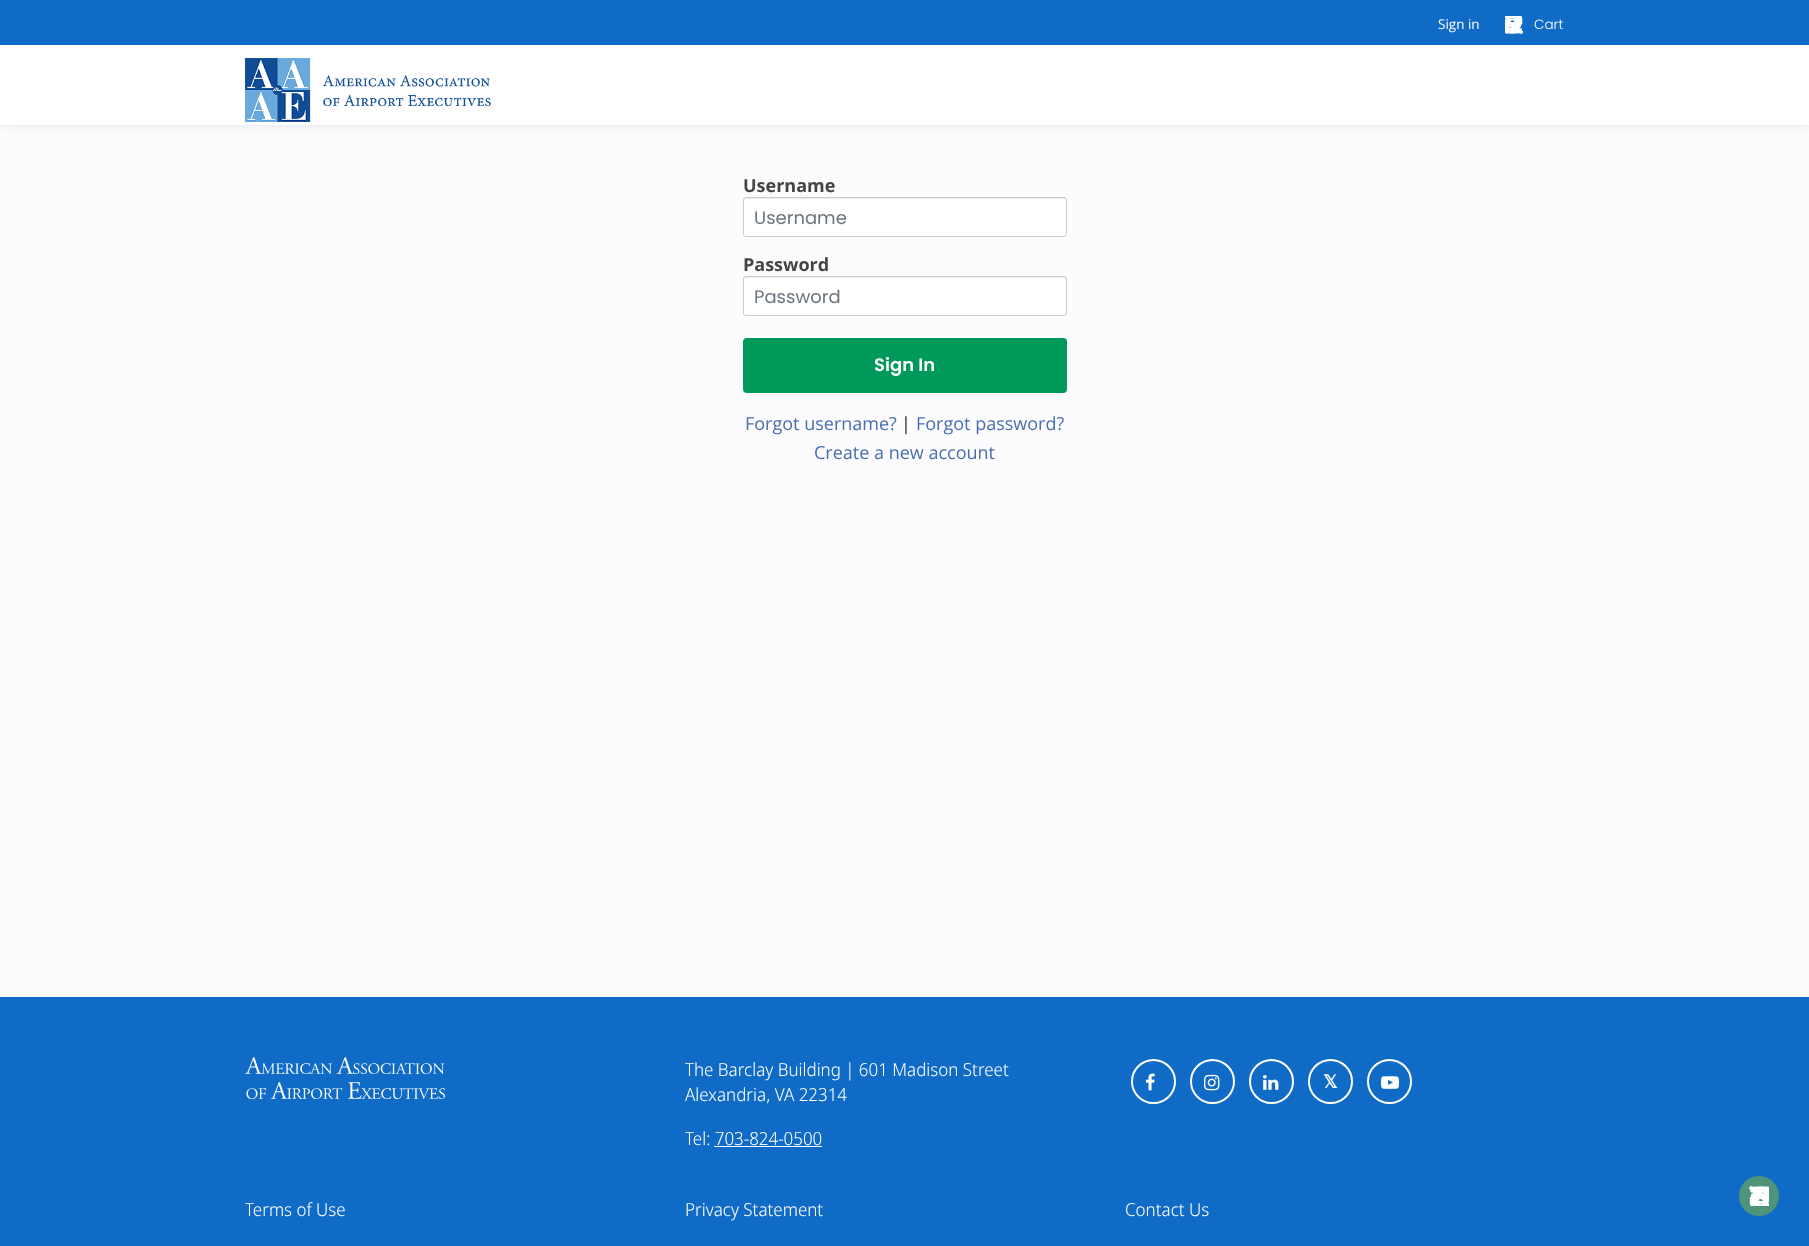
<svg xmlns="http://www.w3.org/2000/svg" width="1809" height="1246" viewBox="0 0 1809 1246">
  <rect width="100%" height="100%" fill="rgb(252,252,255)"/>
  <rect x="0" y="0" width="1809" height="125" fill="rgba(0,0,0,0.1)" filter="blur(5px)"/>
  <rect x="0" y="45" width="1809" height="80" fill="rgb(255,255,255)"/>
  <rect x="0" y="0" width="1809" height="45" fill="rgb(16,107,198)"/>
  <text x="1438" y="29" font-family="Open Sans" font-size="13.5" fill="rgb(255,255,255)">Sign in</text>
  <image x="1505" y="16" width="18" height="18" href="pic1.png"/>
  <text x="1534" y="29" font-family="Poppins" font-size="13.5" font-weight="300" fill="rgb(255,255,255)">Cart</text>
  <image x="245" y="58" width="246" height="64" href="pic2.png"/>
  <text x="743" y="192" font-family="Open Sans" font-size="18" font-weight="bold" fill="rgb(68,68,68)">Username</text>
  <rect x="743" y="197" width="324" height="40" rx="3" fill="rgb(255,255,255)"/>
  <path d="M746 199H1064C1065 199 1066 200 1066 201C1066 200 1066 198 1064 198H745L744 199V201C744 200 745 199 746 199Z" fill="rgb(236,236,236)"/>
  <rect x="743.5" y="197.5" width="323" height="39" rx="2.5" fill="none" stroke="rgb(204,204,204)"/>
  <text x="754" y="224" font-family="Poppins" font-size="18" fill="rgb(108,117,125)">Username</text>
  <text x="743" y="271" font-family="Open Sans" font-size="18" font-weight="bold" fill="rgb(68,68,68)">Password</text>
  <rect x="743" y="276" width="324" height="40" rx="3" fill="rgb(255,255,255)"/>
  <path d="M746 278H1064C1065 278 1066 279 1066 280C1066 279 1066 277 1064 277H745L744 278V280C744 279 745 278 746 278Z" fill="rgb(236,236,236)"/>
  <rect x="743.5" y="276.5" width="323" height="39" rx="2.5" fill="none" stroke="rgb(204,204,204)"/>
  <text x="754" y="303" font-family="Poppins" font-size="18" fill="rgb(108,117,125)">Password</text>
  <rect x="743" y="338" width="324" height="55" rx="4" fill="rgb(0,153,89)"/>
  <text x="874" y="371" font-family="Poppins" font-size="18" font-weight="600" fill="rgb(255,255,255)">Sign In</text>
  <text x="745" y="430" font-family="Open Sans" font-size="18" fill="rgb(73,109,173)">Forgot username?</text>
  <text x="901" y="430" font-family="Open Sans" font-size="18" fill="rgb(34,34,34)">|</text>
  <g font-family="Open Sans" font-size="18" fill="rgb(73,109,173)">
    <text x="916" y="430">Forgot password?</text>
    <text x="814" y="459">Create a new account</text>
  </g>
  <rect x="0" y="997" width="1809" height="249" fill="rgb(16,107,198)"/>
  <image x="245" y="1057" width="200" height="42" href="pic3.png"/>
  <g font-family="Noto Sans Display" font-size="18" font-weight="300" fill="rgb(255,255,255)">
    <text x="245" y="1216">Terms of Use</text>
    <text>
      <tspan x="685" y="1076">The Barclay Building | 601 Madison Street</tspan>
      <tspan x="685" y="1101">Alexandria, VA 22314</tspan>
    </text>
    <text x="685" y="1145">Tel: 703-824-0500</text>
  </g>
  <rect x="714" y="1146" width="108" height="1" fill="rgb(255,255,255)"/>
  <text x="685" y="1216" font-family="Noto Sans Display" font-size="18" font-weight="300" fill="rgb(255,255,255)">Privacy Statement</text>
  <circle cx="1153.5" cy="1081.5" r="21.5" fill="none" stroke="rgb(255,255,255)" stroke-width="2"/>
  <image x="1145" y="1073" width="10" height="18" href="pic4.png"/>
  <circle cx="1212.5" cy="1081.5" r="21.5" fill="none" stroke="rgb(255,255,255)" stroke-width="2"/>
  <image x="1204" y="1074" width="16" height="17" href="pic5.png"/>
  <circle cx="1271.5" cy="1081.5" r="21.5" fill="none" stroke="rgb(255,255,255)" stroke-width="2"/>
  <image x="1263" y="1075" width="16" height="15" href="pic6.png"/>
  <circle cx="1330.5" cy="1081.5" r="21.5" fill="none" stroke="rgb(255,255,255)" stroke-width="2"/>
  <text x="1323" y="1088" font-family="DejaVu Sans" font-size="18" font-weight="bold" fill="rgb(255,255,255)">𝕏</text>
  <circle cx="1389.5" cy="1081.5" r="21.5" fill="none" stroke="rgb(255,255,255)" stroke-width="2"/>
  <image x="1381" y="1076" width="18" height="13" href="pic7.png"/>
  <text x="1125" y="1216" font-family="Noto Sans Display" font-size="18" font-weight="300" fill="rgb(255,255,255)">Contact Us</text>
  <circle cx="1759" cy="1196" r="20" fill="rgb(78,147,122)"/>
  <image x="1749" y="1186" width="20" height="20" href="pic8.png"/>
</svg>
